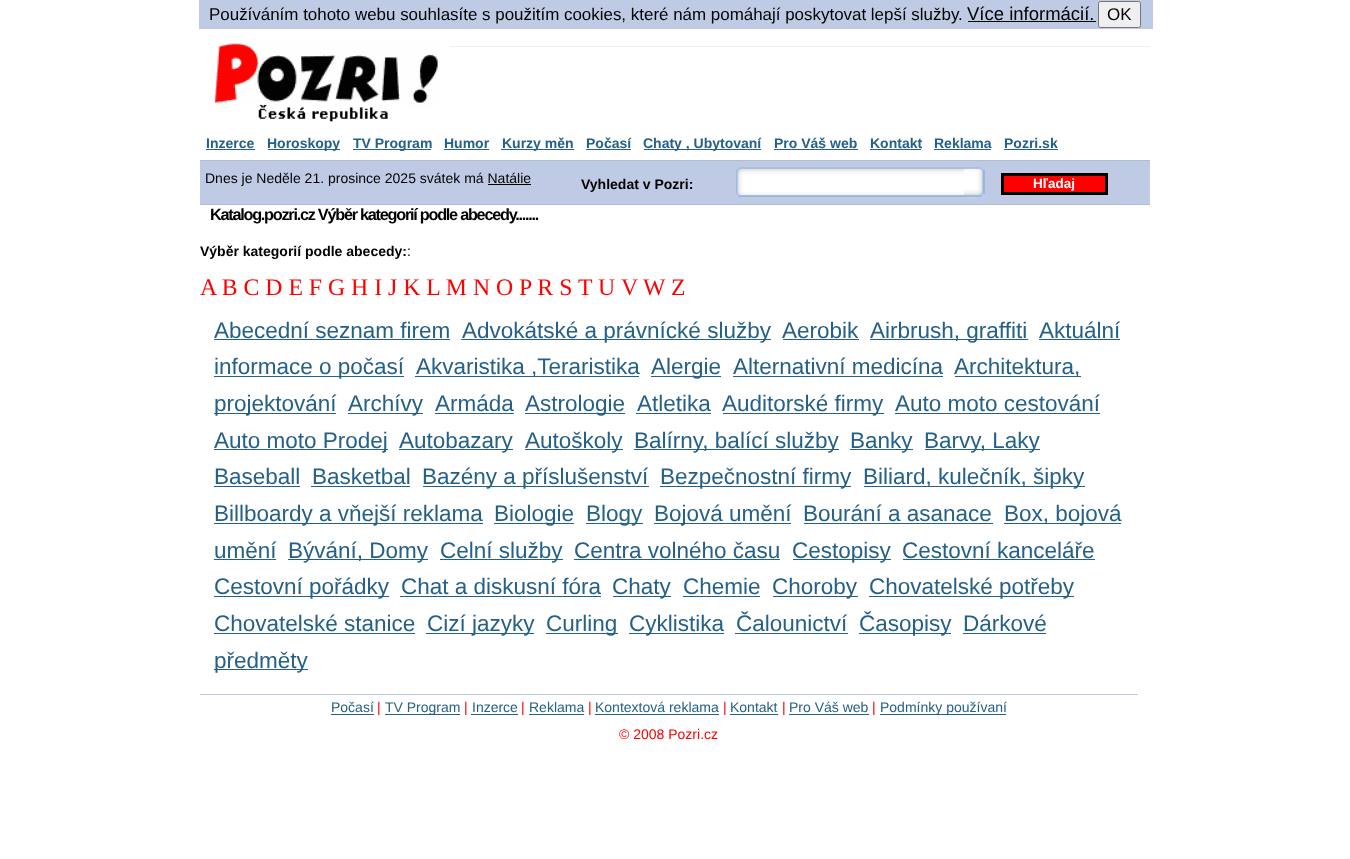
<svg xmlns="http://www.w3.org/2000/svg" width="1350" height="859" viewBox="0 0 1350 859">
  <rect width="100%" height="100%" fill="rgb(255,255,255)"/>
  <rect x="199" y="0" width="954" height="29" fill="rgb(191,202,229)"/>
  <text x="209" y="20" font-family="Liberation Sans" font-size="16.95" fill="rgb(0,0,0)">Používáním tohoto webu souhlasíte s použitím cookies, které nám pomáhají poskytovat lepší služby.</text>
  <text x="967" y="20" font-family="Liberation Sans" font-size="18.5" fill="rgb(0,0,0)">Více informácií.</text>
  <rect x="968" y="21" width="128" height="1" fill="rgb(0,0,0)"/>
  <rect x="1098.5" y="1.5" width="42" height="26" rx="2" fill="rgb(239,239,239)" stroke="rgb(118,118,118)"/>
  <text x="1107" y="20" font-family="Liberation Sans" font-size="17" fill="rgb(0,0,0)">OK</text>
  <image x="214" y="43" width="224" height="79" href="pic1.png"/>
  <rect x="450" y="46" width="700" height="1" fill="rgb(238,238,238)"/>
  <text x="206" y="148" font-family="Liberation Sans" font-size="14" font-weight="bold" fill="rgb(36,96,136)">Inzerce</text>
  <rect x="206" y="149" width="49" height="1" fill="rgb(36,96,136)"/>
  <rect x="268" y="149" width="72" height="1" fill="rgb(36,96,136)"/>
  <text x="267" y="148" font-family="Liberation Sans" font-size="14" font-weight="bold" fill="rgb(36,96,136)">Horoskopy</text>
  <rect x="353" y="149" width="78" height="1" fill="rgb(36,96,136)"/>
  <g font-family="Liberation Sans" font-size="14" font-weight="bold" fill="rgb(36,96,136)">
    <text x="353" y="148">TV Program</text>
    <text x="444" y="148">Humor</text>
  </g>
  <rect x="444" y="149" width="45" height="1" fill="rgb(36,96,136)"/>
  <rect x="501" y="149" width="73" height="1" fill="rgb(36,96,136)"/>
  <g font-family="Liberation Sans" font-size="14" font-weight="bold" fill="rgb(36,96,136)">
    <text x="502" y="148">Kurzy měn</text>
    <text x="586" y="148">Počasí</text>
  </g>
  <rect x="586" y="149" width="45" height="1" fill="rgb(36,96,136)"/>
  <rect x="644" y="149" width="117" height="1" fill="rgb(36,96,136)"/>
  <g font-family="Liberation Sans" font-size="14" font-weight="bold" fill="rgb(36,96,136)">
    <text x="643" y="148">Chaty , Ubytovaní</text>
    <text x="774" y="148">Pro Váš web</text>
  </g>
  <rect x="774" y="149" width="84" height="1" fill="rgb(36,96,136)"/>
  <text x="870" y="148" font-family="Liberation Sans" font-size="14" font-weight="bold" fill="rgb(36,96,136)">Kontakt</text>
  <rect x="870" y="149" width="51" height="1" fill="rgb(36,96,136)"/>
  <text x="934" y="148" font-family="Liberation Sans" font-size="14" font-weight="bold" fill="rgb(36,96,136)">Reklama</text>
  <rect x="934" y="149" width="57" height="1" fill="rgb(36,96,136)"/>
  <text x="1004" y="148" font-family="Liberation Sans" font-size="14" font-weight="bold" fill="rgb(36,96,136)">Pozri.sk</text>
  <rect x="1004" y="149" width="54" height="1" fill="rgb(36,96,136)"/>
  <rect x="200" y="161" width="950" height="43" fill="rgb(191,202,229)"/>
  <rect x="200" y="160" width="950" height="1" fill="rgb(174,191,210)"/>
  <rect x="200" y="204" width="950" height="1" fill="rgb(174,191,210)"/>
  <text x="205" y="183" font-family="Liberation Sans" font-size="14" fill="rgb(0,0,0)">Dnes je Neděle 21. prosince 2025 svátek má Natálie</text>
  <rect x="488" y="184" width="43" height="1" fill="rgb(0,0,0)"/>
  <text x="581" y="189" font-family="Liberation Sans" font-size="14" font-weight="bold" fill="rgb(0,0,0)">Vyhledat v Pozri:</text>
  <image x="736" y="167" width="249" height="31" href="pic2.png"/>
  <rect x="1002.5" y="174.5" width="104" height="19" fill="rgb(255,0,0)" stroke="rgb(0,0,0)" stroke-width="3"/>
  <text x="1033" y="188" font-family="Liberation Sans" font-size="13.5" font-weight="bold" fill="rgb(255,255,255)">Hľadaj</text>
  <text x="210" y="220" font-family="Liberation Sans" font-size="16.25" font-weight="bold" letter-spacing="-1.25" fill="rgb(0,0,0)">Katalog.pozri.cz Výběr kategorií podle abecedy.......</text>
  <text x="200" y="256" font-family="Liberation Sans" font-size="14" font-weight="bold" fill="rgb(0,0,0)">Výběr kategorií podle abecedy:</text>
  <text x="407" y="256" font-family="Liberation Sans" font-size="14" fill="rgb(0,0,0)">:</text>
  <g font-family="Liberation Serif" font-size="23.75" fill="rgb(255,0,0)">
    <text x="200" y="295">A B C D E F G H I J K L M N O P R S</text>
    <text x="578" y="295">T U</text>
    <text x="621" y="295">V</text>
    <text x="643" y="295">W Z</text>
  </g>
  <text x="214" y="338" font-family="Liberation Sans" font-size="22.5" fill="rgb(36,96,136)">Abecední seznam firem</text>
  <rect x="214" y="339" width="236" height="1" fill="rgb(36,96,136)"/>
  <rect x="461" y="339" width="310" height="1" fill="rgb(36,96,136)"/>
  <g font-family="Liberation Sans" font-size="22.5" fill="rgb(36,96,136)">
    <text x="462" y="338">Advokátské a právnícké služby</text>
    <text x="782" y="338">Aerobik</text>
  </g>
  <rect x="783" y="339" width="76" height="1" fill="rgb(36,96,136)"/>
  <rect x="870" y="339" width="158" height="1" fill="rgb(36,96,136)"/>
  <g font-family="Liberation Sans" font-size="22.5" fill="rgb(36,96,136)">
    <text x="870" y="338">Airbrush, graffiti</text>
    <text x="1039" y="338">Aktuální</text>
  </g>
  <rect x="1039" y="339" width="81" height="1" fill="rgb(36,96,136)"/>
  <rect x="214" y="376" width="190" height="1" fill="rgb(36,96,136)"/>
  <text x="214" y="374" font-family="Liberation Sans" font-size="22.5" fill="rgb(36,96,136)">informace o počasí</text>
  <rect x="415" y="376" width="224" height="1" fill="rgb(36,96,136)"/>
  <text x="416" y="374" font-family="Liberation Sans" font-size="22.5" fill="rgb(36,96,136)">Akvaristika ,Teraristika</text>
  <rect x="651" y="376" width="70" height="1" fill="rgb(36,96,136)"/>
  <g font-family="Liberation Sans" font-size="22.5" fill="rgb(36,96,136)">
    <text x="651" y="374">Alergie</text>
    <text x="733" y="374">Alternativní medicína</text>
  </g>
  <rect x="733" y="376" width="210" height="1" fill="rgb(36,96,136)"/>
  <rect x="955" y="376" width="126" height="1" fill="rgb(36,96,136)"/>
  <text x="954" y="374" font-family="Liberation Sans" font-size="22.5" fill="rgb(36,96,136)">Architektura,</text>
  <rect x="214" y="413" width="122" height="1" fill="rgb(36,96,136)"/>
  <text x="214" y="411" font-family="Liberation Sans" font-size="22.5" fill="rgb(36,96,136)">projektování</text>
  <rect x="348" y="413" width="75" height="1" fill="rgb(36,96,136)"/>
  <g font-family="Liberation Sans" font-size="22.5" fill="rgb(36,96,136)">
    <text x="348" y="411">Archívy</text>
    <text x="435" y="411">Armáda</text>
  </g>
  <rect x="435" y="413" width="79" height="1" fill="rgb(36,96,136)"/>
  <rect x="525" y="413" width="100" height="1" fill="rgb(36,96,136)"/>
  <g font-family="Liberation Sans" font-size="22.5" fill="rgb(36,96,136)">
    <text x="525" y="411">Astrologie</text>
    <text x="637" y="411">Atletika</text>
  </g>
  <rect x="636" y="413" width="75" height="1" fill="rgb(36,96,136)"/>
  <rect x="723" y="413" width="161" height="1" fill="rgb(36,96,136)"/>
  <g font-family="Liberation Sans" font-size="22.5" fill="rgb(36,96,136)">
    <text x="722" y="411">Auditorské firmy</text>
    <text x="895" y="411">Auto moto cestování</text>
  </g>
  <rect x="895" y="413" width="205" height="1" fill="rgb(36,96,136)"/>
  <rect x="214" y="449" width="174" height="1" fill="rgb(36,96,136)"/>
  <text x="214" y="448" font-family="Liberation Sans" font-size="22.5" fill="rgb(36,96,136)">Auto moto Prodej</text>
  <rect x="399" y="449" width="114" height="1" fill="rgb(36,96,136)"/>
  <text x="399" y="448" font-family="Liberation Sans" font-size="22.5" fill="rgb(36,96,136)">Autobazary</text>
  <rect x="525" y="449" width="98" height="1" fill="rgb(36,96,136)"/>
  <text x="525" y="448" font-family="Liberation Sans" font-size="22.5" fill="rgb(36,96,136)">Autoškoly</text>
  <rect x="634" y="449" width="205" height="1" fill="rgb(36,96,136)"/>
  <text x="634" y="448" font-family="Liberation Sans" font-size="22.5" fill="rgb(36,96,136)">Balírny, balící služby</text>
  <rect x="850" y="449" width="63" height="1" fill="rgb(36,96,136)"/>
  <text x="850" y="448" font-family="Liberation Sans" font-size="22.5" fill="rgb(36,96,136)">Banky</text>
  <rect x="925" y="449" width="115" height="1" fill="rgb(36,96,136)"/>
  <g font-family="Liberation Sans" font-size="22.5" fill="rgb(36,96,136)">
    <text x="924" y="448">Barvy, Laky</text>
    <text x="214" y="484">Baseball</text>
  </g>
  <rect x="214" y="486" width="86" height="1" fill="rgb(36,96,136)"/>
  <text x="312" y="484" font-family="Liberation Sans" font-size="22.5" fill="rgb(36,96,136)">Basketbal</text>
  <rect x="311" y="486" width="99" height="1" fill="rgb(36,96,136)"/>
  <rect x="423" y="486" width="226" height="1" fill="rgb(36,96,136)"/>
  <text x="422" y="484" font-family="Liberation Sans" font-size="22.5" fill="rgb(36,96,136)">Bazény a příslušenství</text>
  <rect x="660" y="486" width="191" height="1" fill="rgb(36,96,136)"/>
  <text x="660" y="484" font-family="Liberation Sans" font-size="22.5" fill="rgb(36,96,136)">Bezpečnostní firmy</text>
  <rect x="864" y="486" width="221" height="1" fill="rgb(36,96,136)"/>
  <text x="863" y="484" font-family="Liberation Sans" font-size="22.5" fill="rgb(36,96,136)">Biliard, kulečník, šipky</text>
  <rect x="214" y="523" width="269" height="1" fill="rgb(36,96,136)"/>
  <text x="214" y="521" font-family="Liberation Sans" font-size="22.5" fill="rgb(36,96,136)">Billboardy a vňejší reklama</text>
  <rect x="494" y="523" width="80" height="1" fill="rgb(36,96,136)"/>
  <text x="494" y="521" font-family="Liberation Sans" font-size="22.5" fill="rgb(36,96,136)">Biologie</text>
  <rect x="586" y="523" width="57" height="1" fill="rgb(36,96,136)"/>
  <text x="586" y="521" font-family="Liberation Sans" font-size="22.5" fill="rgb(36,96,136)">Blogy</text>
  <rect x="654" y="523" width="137" height="1" fill="rgb(36,96,136)"/>
  <g font-family="Liberation Sans" font-size="22.5" fill="rgb(36,96,136)">
    <text x="654" y="521">Bojová umění</text>
    <text x="803" y="521">Bourání a asanace</text>
  </g>
  <rect x="804" y="523" width="189" height="1" fill="rgb(36,96,136)"/>
  <rect x="1004" y="523" width="117" height="1" fill="rgb(36,96,136)"/>
  <g font-family="Liberation Sans" font-size="22.5" fill="rgb(36,96,136)">
    <text x="1004" y="521">Box, bojová</text>
    <text x="214" y="558">umění</text>
  </g>
  <rect x="214" y="559" width="62" height="1" fill="rgb(36,96,136)"/>
  <rect x="288" y="559" width="140" height="1" fill="rgb(36,96,136)"/>
  <text x="288" y="558" font-family="Liberation Sans" font-size="22.5" fill="rgb(36,96,136)">Bývání, Domy</text>
  <rect x="440" y="559" width="123" height="1" fill="rgb(36,96,136)"/>
  <g font-family="Liberation Sans" font-size="22.5" fill="rgb(36,96,136)">
    <text x="440" y="558">Celní služby</text>
    <text x="574" y="558">Centra volného času</text>
  </g>
  <rect x="574" y="559" width="206" height="1" fill="rgb(36,96,136)"/>
  <rect x="793" y="559" width="98" height="1" fill="rgb(36,96,136)"/>
  <g font-family="Liberation Sans" font-size="22.5" fill="rgb(36,96,136)">
    <text x="792" y="558">Cestopisy</text>
    <text x="902" y="558">Cestovní kanceláře</text>
  </g>
  <rect x="903" y="559" width="192" height="1" fill="rgb(36,96,136)"/>
  <rect x="214" y="596" width="175" height="1" fill="rgb(36,96,136)"/>
  <g font-family="Liberation Sans" font-size="22.5" fill="rgb(36,96,136)">
    <text x="214" y="594">Cestovní pořádky</text>
    <text x="401" y="594">Chat a diskusní fóra</text>
  </g>
  <rect x="400" y="596" width="201" height="1" fill="rgb(36,96,136)"/>
  <rect x="613" y="596" width="58" height="1" fill="rgb(36,96,136)"/>
  <g font-family="Liberation Sans" font-size="22.5" fill="rgb(36,96,136)">
    <text x="612" y="594">Chaty</text>
    <text x="683" y="594">Chemie</text>
  </g>
  <rect x="683" y="596" width="77" height="1" fill="rgb(36,96,136)"/>
  <rect x="773" y="596" width="85" height="1" fill="rgb(36,96,136)"/>
  <text x="772" y="594" font-family="Liberation Sans" font-size="22.5" fill="rgb(36,96,136)">Choroby</text>
  <rect x="869" y="596" width="205" height="1" fill="rgb(36,96,136)"/>
  <g font-family="Liberation Sans" font-size="22.5" fill="rgb(36,96,136)">
    <text x="869" y="594">Chovatelské potřeby</text>
    <text x="214" y="631">Chovatelské stanice</text>
  </g>
  <rect x="214" y="633" width="201" height="1" fill="rgb(36,96,136)"/>
  <rect x="426" y="633" width="108" height="1" fill="rgb(36,96,136)"/>
  <text x="427" y="631" font-family="Liberation Sans" font-size="22.5" fill="rgb(36,96,136)">Cizí jazyky</text>
  <rect x="546" y="633" width="72" height="1" fill="rgb(36,96,136)"/>
  <text x="546" y="631" font-family="Liberation Sans" font-size="22.5" fill="rgb(36,96,136)">Curling</text>
  <rect x="629" y="633" width="95" height="1" fill="rgb(36,96,136)"/>
  <g font-family="Liberation Sans" font-size="22.5" fill="rgb(36,96,136)">
    <text x="629" y="631">Cyklistika</text>
    <text x="736" y="631">Čalounictví</text>
  </g>
  <rect x="735" y="633" width="113" height="1" fill="rgb(36,96,136)"/>
  <rect x="859" y="633" width="92" height="1" fill="rgb(36,96,136)"/>
  <g font-family="Liberation Sans" font-size="22.5" fill="rgb(36,96,136)">
    <text x="859" y="631">Časopisy</text>
    <text x="963" y="631">Dárkové</text>
  </g>
  <rect x="963" y="633" width="83" height="1" fill="rgb(36,96,136)"/>
  <rect x="214" y="669" width="94" height="1" fill="rgb(36,96,136)"/>
  <text x="214" y="668" font-family="Liberation Sans" font-size="22.5" fill="rgb(36,96,136)">předměty</text>
  <rect x="200" y="694" width="938" height="1" fill="rgb(191,202,229)"/>
  <text x="331" y="712" font-family="Liberation Sans" font-size="14" fill="rgb(36,96,136)">Počasí</text>
  <rect x="331" y="714" width="43" height="1" fill="rgb(36,96,136)"/>
  <text x="377" y="712" font-family="Liberation Sans" font-size="14" fill="rgb(255,0,0)">|</text>
  <rect x="385" y="714" width="75" height="1" fill="rgb(36,96,136)"/>
  <text x="385" y="712" font-family="Liberation Sans" font-size="14" fill="rgb(36,96,136)">TV Program</text>
  <text x="464" y="712" font-family="Liberation Sans" font-size="14" fill="rgb(255,0,0)">|</text>
  <text x="472" y="712" font-family="Liberation Sans" font-size="14" fill="rgb(36,96,136)">Inzerce</text>
  <rect x="471" y="714" width="47" height="1" fill="rgb(36,96,136)"/>
  <text x="521" y="712" font-family="Liberation Sans" font-size="14" fill="rgb(255,0,0)">|</text>
  <text x="529" y="712" font-family="Liberation Sans" font-size="14" fill="rgb(36,96,136)">Reklama</text>
  <rect x="529" y="714" width="55" height="1" fill="rgb(36,96,136)"/>
  <text x="588" y="712" font-family="Liberation Sans" font-size="14" fill="rgb(255,0,0)">|</text>
  <text x="595" y="712" font-family="Liberation Sans" font-size="14" fill="rgb(36,96,136)">Kontextová reklama</text>
  <rect x="595" y="714" width="124" height="1" fill="rgb(36,96,136)"/>
  <text x="723" y="712" font-family="Liberation Sans" font-size="14" fill="rgb(255,0,0)">|</text>
  <text x="730" y="712" font-family="Liberation Sans" font-size="14" fill="rgb(36,96,136)">Kontakt</text>
  <rect x="730" y="714" width="48" height="1" fill="rgb(36,96,136)"/>
  <text x="782" y="712" font-family="Liberation Sans" font-size="14" fill="rgb(255,0,0)">|</text>
  <text x="789" y="712" font-family="Liberation Sans" font-size="14" fill="rgb(36,96,136)">Pro Váš web</text>
  <rect x="789" y="714" width="80" height="1" fill="rgb(36,96,136)"/>
  <text x="872" y="712" font-family="Liberation Sans" font-size="14" fill="rgb(255,0,0)">|</text>
  <rect x="880" y="714" width="126" height="1" fill="rgb(36,96,136)"/>
  <text x="880" y="712" font-family="Liberation Sans" font-size="14" fill="rgb(36,96,136)">Podmínky používaní</text>
  <text x="619" y="739" font-family="Liberation Sans" font-size="14" fill="rgb(255,0,0)">© 2008 Pozri.cz</text>
</svg>
